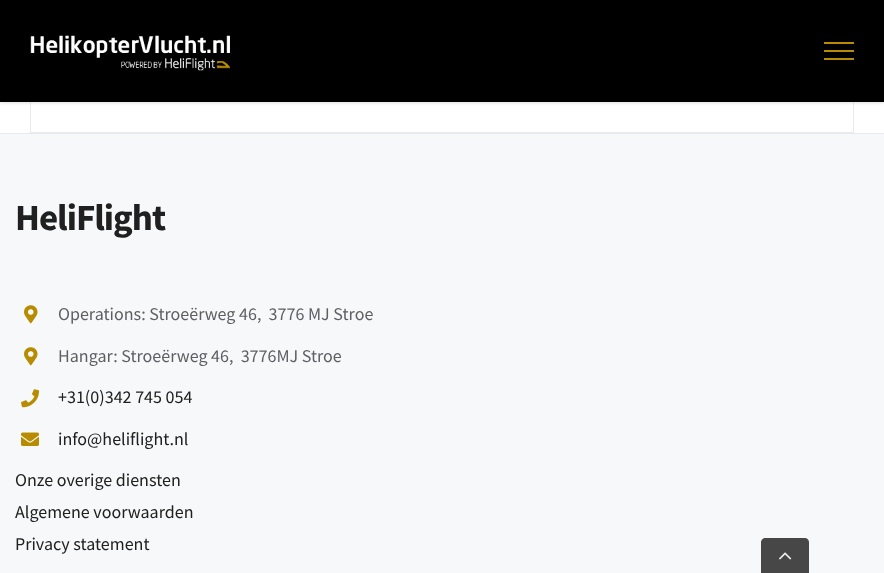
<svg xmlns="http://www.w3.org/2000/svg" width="884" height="573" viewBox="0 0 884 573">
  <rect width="100%" height="100%" fill="rgb(255,255,255)"/>
  <rect x="853" y="102" width="1" height="31" fill="rgb(232,234,240)"/>
  <rect x="30" y="132" width="824" height="1" fill="rgb(232,234,240)"/>
  <rect x="30" y="102" width="1" height="31" fill="rgb(232,234,240)"/>
  <rect x="0" y="1" width="884" height="102" fill="rgba(0,0,0,0.12)" filter="blur(1.5px)"/>
  <rect x="0" y="0" width="884" height="102" fill="rgb(0,0,0)"/>
  <image x="30" y="35" width="200" height="36" href="pic1.png"/>
  <rect x="824" y="42" width="30" height="2" fill="rgb(183,140,1)"/>
  <rect x="824" y="50" width="30" height="2" fill="rgb(183,140,1)"/>
  <rect x="824" y="58" width="30" height="2" fill="rgb(183,140,1)"/>
  <rect x="0" y="134" width="884" height="439" fill="rgb(247,248,249)"/>
  <rect x="0" y="133" width="884" height="1" fill="rgb(232,234,240)"/>
  <text x="15" y="230" font-family="Source Sans Pro" font-size="37" font-weight="bold" letter-spacing="-1" fill="rgb(32,32,32)">HeliFlight</text>
  <image x="24" y="305" width="14" height="19" href="pic2.png"/>
  <text x="58" y="320" font-family="Source Sans Pro" font-size="18" fill="rgb(93,95,100)" xml:space="preserve">Operations: Stroeërweg 46,  3776 MJ Stroe</text>
  <image x="24" y="347" width="14" height="19" href="pic2.png"/>
  <text x="58" y="362" font-family="Source Sans Pro" font-size="18" fill="rgb(93,95,100)" xml:space="preserve">Hangar: Stroeërweg 46,  3776MJ Stroe</text>
  <image x="21" y="389" width="18" height="19" href="pic3.png"/>
  <text x="58" y="403" font-family="Source Sans Pro" font-size="18" fill="rgb(32,32,32)">+31(0)342 745 054</text>
  <image x="21" y="432" width="18" height="14" href="pic4.png"/>
  <g font-family="Source Sans Pro" font-size="18" fill="rgb(32,32,32)">
    <text x="58" y="445">info@heliflight.nl</text>
    <text>
      <tspan x="15" y="486">Onze overige diensten</tspan>
      <tspan x="15" y="518">Algemene voorwaarden</tspan>
      <tspan x="15" y="550">Privacy statement</tspan>
    </text>
  </g>
  <path d="M765 538H805C807 538 809 540 809 542V573H761V542C761 540 763 538 765 538Z" fill="rgb(71,71,71)"/>
  <image x="779" y="552" width="13" height="8" href="pic5.png"/>
</svg>
